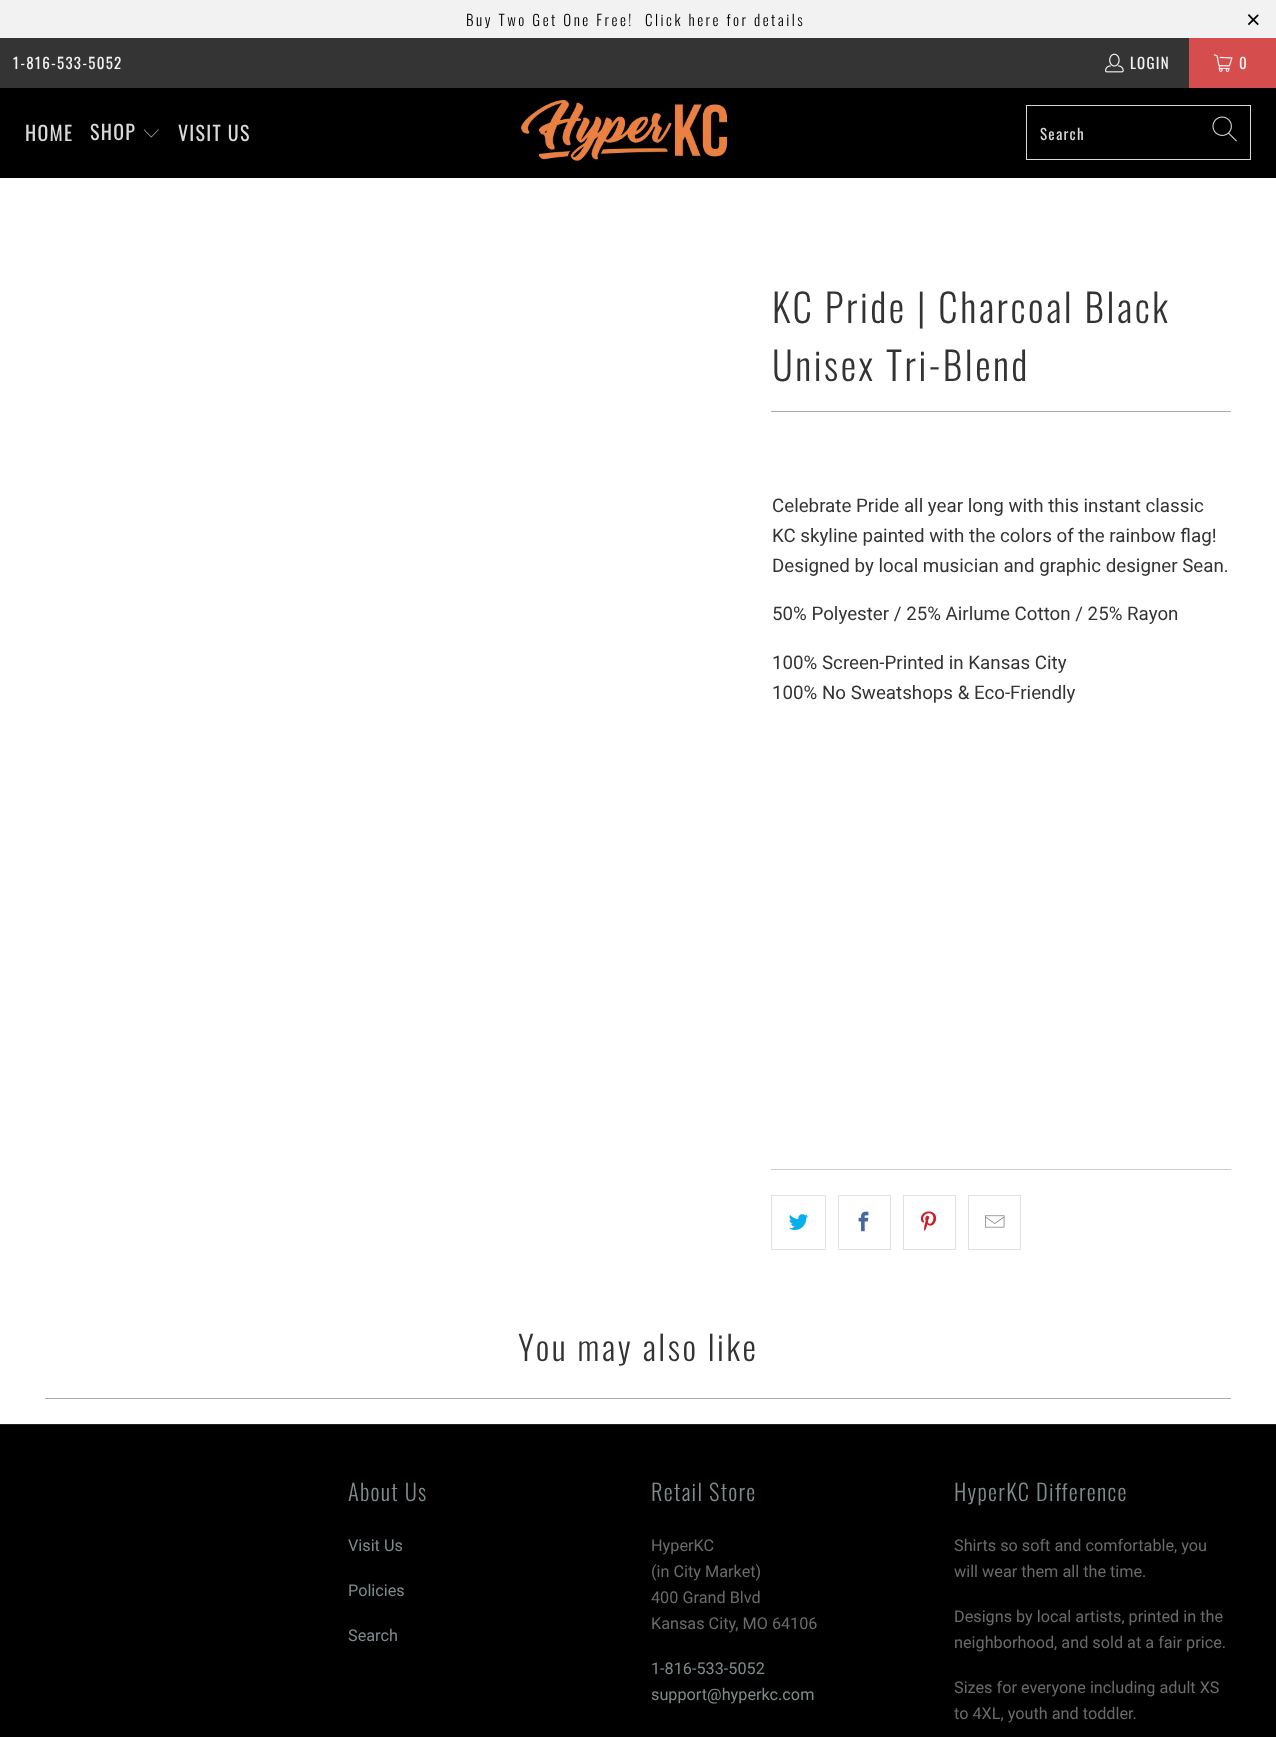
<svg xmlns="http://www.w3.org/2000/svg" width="1276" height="1737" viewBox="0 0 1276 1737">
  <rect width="100%" height="100%" fill="rgb(255,255,255)"/>
  <rect x="0" y="0" width="1276" height="38" fill="rgb(242,242,242)"/>
  <g font-family="Oswald" font-size="15" font-weight="300" letter-spacing="2.5" fill="rgb(0,0,0)">
    <text x="466" y="26">Buy Two Get One Free!</text>
    <text x="645" y="26">Click here for details</text>
  </g>
  <text x="1246" y="28" font-family="Liberation Sans" font-size="25" letter-spacing="2.5" fill="rgb(0,0,0)">×</text>
  <rect x="0" y="38" width="1189" height="50" fill="rgb(53,52,52)"/>
  <text x="13" y="69" font-family="Oswald" font-size="15" letter-spacing="1.25" fill="rgb(244,244,244)">1-816-533-5052</text>
  <image x="1105" y="53" width="19" height="20" href="pic1.png"/>
  <text x="1130" y="69" font-family="Oswald" font-size="15" letter-spacing="1.25" fill="rgb(244,244,244)">LOGIN</text>
  <rect x="1189" y="38" width="87" height="50" fill="rgb(213,77,77)"/>
  <image x="1213" y="54" width="20" height="18" href="pic2.png"/>
  <text x="1239" y="69" font-family="Oswald" font-size="15" letter-spacing="1.25" fill="rgb(244,244,244)">0</text>
  <rect x="0" y="88" width="1276" height="90" fill="rgb(0,0,0)"/>
  <g font-family="Oswald" font-size="20" letter-spacing="1.25" fill="rgb(217,217,217)">
    <text x="25" y="141">HOME</text>
    <text x="90" y="140">SHOP</text>
  </g>
  <image x="143" y="129" width="16" height="9" href="pic3.png"/>
  <text x="178" y="141" font-family="Oswald" font-size="20" letter-spacing="1.25" fill="rgb(217,217,217)">VISIT US</text>
  <image x="521" y="100" width="206" height="61" href="pic4.png"/>
  <rect x="1026.5" y="105.5" width="224" height="54" fill="none" stroke="rgb(217,217,217)"/>
  <text x="1040" y="140" font-family="Oswald" font-size="15" letter-spacing="1.25" fill="rgb(217,217,217)">Search</text>
  <image x="1212" y="116" width="25" height="26" href="pic5.png"/>
  <g font-family="Oswald" font-size="38.75" font-weight="300" letter-spacing="2.5" fill="rgb(51,51,51)">
    <text>
      <tspan x="772" y="323">KC Pride | Charcoal Black</tspan>
      <tspan x="772" y="381">Unisex Tri-Blend</tspan>
    </text>
  </g>
  <rect x="771" y="411" width="460" height="1" fill="rgb(170,170,170)"/>
  <g font-family="Roboto" font-size="18.75" fill="rgb(51,51,51)">
    <text>
      <tspan x="772" y="512">Celebrate Pride all year long with this instant classic</tspan>
      <tspan x="772" y="542">KC skyline painted with the colors of the rainbow flag!</tspan>
      <tspan x="772" y="572">Designed by local musician and graphic designer Sean.</tspan>
    </text>
    <text x="772" y="620">50% Polyester / 25% Airlume Cotton / 25% Rayon</text>
    <text>
      <tspan x="772" y="669">100% Screen-Printed in Kansas City</tspan>
      <tspan x="772" y="699">100% No Sweatshops &amp; Eco-Friendly</tspan>
    </text>
  </g>
  <rect x="771" y="1169" width="460" height="1" fill="rgb(204,204,204)"/>
  <rect x="771.5" y="1195.5" width="54" height="54" fill="none" stroke="rgb(226,226,226)"/>
  <image x="789" y="1214" width="20" height="16" href="pic6.png"/>
  <rect x="838.5" y="1195.5" width="52" height="54" fill="none" stroke="rgb(226,226,226)"/>
  <image x="858" y="1211" width="11" height="21" href="pic7.png"/>
  <rect x="903.5" y="1195.5" width="52" height="54" fill="none" stroke="rgb(226,226,226)"/>
  <image x="920" y="1211" width="17" height="20" href="pic8.png"/>
  <rect x="968.5" y="1195.5" width="52" height="54" fill="none" stroke="rgb(226,226,226)"/>
  <image x="985" y="1215" width="20" height="13" href="pic9.png"/>
  <text x="518" y="1361" font-family="Oswald" font-size="33.75" font-weight="300" letter-spacing="2.5" fill="rgb(51,51,51)">You may also like</text>
  <rect x="45" y="1398" width="1186" height="1" fill="rgb(170,170,170)"/>
  <rect x="0" y="1425" width="1276" height="312" fill="rgb(0,0,0)"/>
  <rect x="0" y="1424" width="1276" height="1" fill="rgb(27,31,35)"/>
  <text x="348" y="1501" font-family="Oswald" font-size="22.5" font-weight="300" letter-spacing="1.25" fill="rgb(127,140,141)">About Us</text>
  <g font-family="Roboto" font-size="16.25" fill="rgb(127,140,141)">
    <text x="348" y="1551">Visit Us</text>
    <text x="348" y="1596">Policies</text>
    <text x="348" y="1641">Search</text>
  </g>
  <text x="651" y="1501" font-family="Oswald" font-size="22.5" font-weight="300" letter-spacing="1.25" fill="rgb(127,140,141)">Retail Store</text>
  <g font-family="Roboto" font-size="16.25" fill="rgb(107,107,107)">
    <text>
      <tspan x="651" y="1551">HyperKC</tspan>
      <tspan x="651" y="1577">(in City Market)</tspan>
      <tspan x="651" y="1603">400 Grand Blvd</tspan>
      <tspan x="651" y="1629">Kansas City, MO 64106</tspan>
    </text>
  </g>
  <g font-family="Roboto" font-size="16.25" fill="rgb(127,140,141)">
    <text>
      <tspan x="651" y="1674">1-816-533-5052</tspan>
      <tspan x="651" y="1700">support@hyperkc.com</tspan>
    </text>
  </g>
  <text x="954" y="1501" font-family="Oswald" font-size="22.5" font-weight="300" letter-spacing="1.25" fill="rgb(127,140,141)">HyperKC Difference</text>
  <g font-family="Roboto" font-size="16.25" fill="rgb(107,107,107)">
    <text>
      <tspan x="954" y="1551">Shirts so soft and comfortable, you</tspan>
      <tspan x="954" y="1577">will wear them all the time.</tspan>
    </text>
    <text>
      <tspan x="954" y="1622">Designs by local artists, printed in the</tspan>
      <tspan x="954" y="1648">neighborhood, and sold at a fair price.</tspan>
    </text>
    <text>
      <tspan x="954" y="1693">Sizes for everyone including adult XS</tspan>
      <tspan x="954" y="1719">to 4XL, youth and toddler.</tspan>
    </text>
  </g>
</svg>
